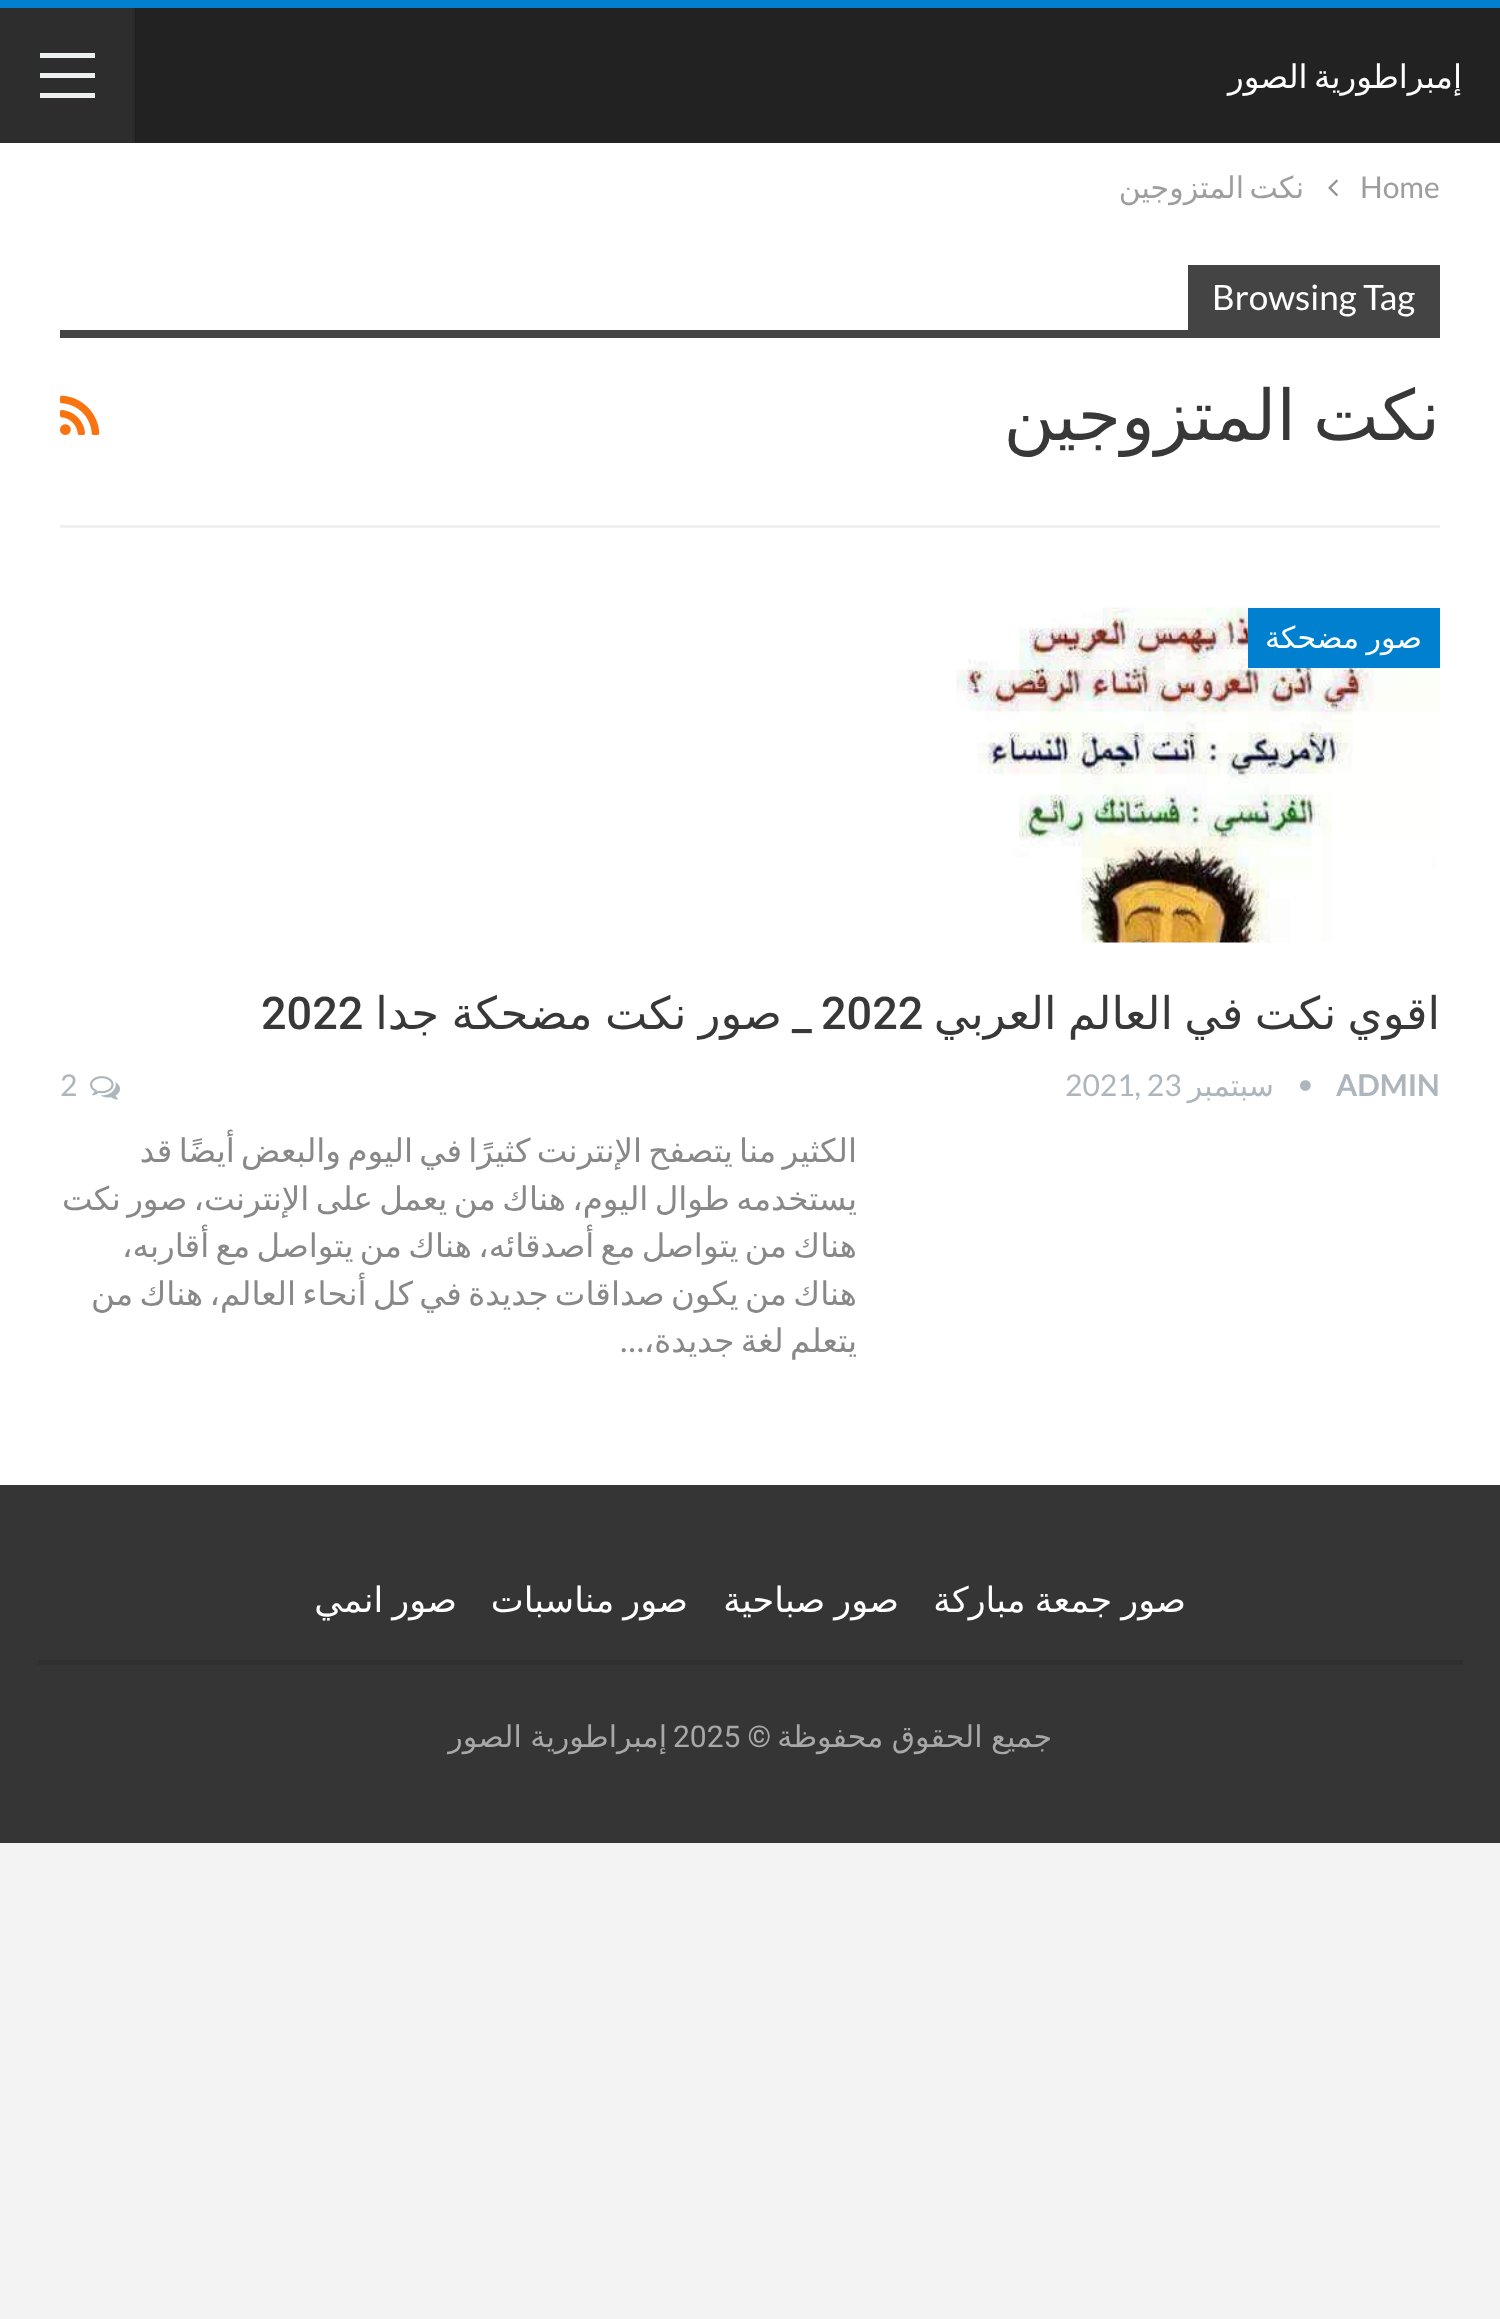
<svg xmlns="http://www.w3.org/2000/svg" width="1500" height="2319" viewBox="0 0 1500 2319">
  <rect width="100%" height="100%" fill="rgb(243,243,243)"/>
  <rect x="0" y="0" width="1500" height="8" fill="rgb(0,128,206)"/>
  <rect x="0" y="143" width="1500" height="1342" fill="rgb(255,255,255)"/>
  <rect x="136" y="8" width="1364" height="135" fill="rgb(34,34,34)"/>
  <rect x="135" y="8" width="1" height="135" fill="rgb(32,32,32)"/>
  <text x="1462" y="88" word-spacing="-4" font-family="DejaVu Sans" font-size="32.5" direction="rtl" fill="rgb(255,255,255)">إمبراطورية الصور</text>
  <rect x="0" y="8" width="133" height="135" fill="rgb(45,45,45)"/>
  <rect x="133" y="8" width="2" height="135" fill="rgb(42,42,42)"/>
  <rect x="40" y="73" width="55" height="5" fill="rgb(236,240,241)"/>
  <rect x="40" y="53" width="55" height="5" fill="rgb(236,240,241)"/>
  <rect x="40" y="93" width="55" height="5" fill="rgb(236,240,241)"/>
  <text x="1360" y="198" font-family="Lato" font-size="30" fill="rgb(158,158,158)">Home</text>
  <image x="1328" y="179" width="10" height="18" href="pic1.png"/>
  <text x="1304" y="198" word-spacing="-4" font-family="DejaVu Sans" font-size="30" direction="rtl" fill="rgb(158,158,158)">نكت المتزوجين</text>
  <rect x="60" y="525" width="1380" height="3" fill="rgb(240,240,240)"/>
  <rect x="1188" y="265" width="252" height="65" fill="rgb(68,68,68)"/>
  <text x="1212" y="310" font-family="Lato" font-size="35" fill="rgb(255,255,255)">Browsing Tag</text>
  <rect x="60" y="330" width="1380" height="8" fill="rgb(68,68,68)"/>
  <text x="1440" y="440" word-spacing="-5" font-family="DejaVu Sans" font-size="70" direction="rtl" fill="rgb(56,56,56)">نكت المتزوجين</text>
  <image x="60" y="395" width="40" height="40" href="pic2.png"/>
  <image x="956" y="607" width="484" height="336" href="pic3.png"/>
  <rect x="1248" y="608" width="192" height="60" fill="rgb(0,128,206)"/>
  <text x="1422" y="648" word-spacing="-2" font-family="DejaVu Sans" font-size="30" direction="rtl" fill="rgb(255,255,255)">صور مضحكة</text>
  <text x="1440" y="1029" word-spacing="-3" font-family="DejaVu Sans" font-size="45" direction="rtl" fill="rgb(56,56,56)">اقوي نكت في العالم العربي</text>
  <text x="821" y="1029" font-family="Roboto" font-size="45" font-weight="500" fill="rgb(56,56,56)">2022</text>
  <text x="782" y="1029" word-spacing="-2" font-family="DejaVu Sans" font-size="45" direction="rtl" fill="rgb(56,56,56)">صور نكت مضحكة جدا</text>
  <text x="261" y="1029" font-family="Roboto" font-size="45" font-weight="500" fill="rgb(56,56,56)">2022</text>
  <text x="812" y="1029" font-family="Roboto" font-size="45" font-weight="500" direction="rtl" fill="rgb(56,56,56)">_</text>
  <text x="1336" y="1096" font-family="Lato" font-size="30" font-weight="bold" fill="rgb(173,181,189)">ADMIN</text>
  <image x="1300" y="1080" width="11" height="11" href="pic4.png"/>
  <text x="1274" y="1096" font-family="DejaVu Sans" font-size="30" direction="rtl" fill="rgb(173,181,189)">سبتمبر</text>
  <text x="1065" y="1096" font-family="Lato" font-size="30" fill="rgb(173,181,189)">2021, 23</text>
  <image x="90" y="1076" width="30" height="24" href="pic5.png"/>
  <text x="60" y="1096" font-family="Lato" font-size="30" fill="rgb(173,181,189)">2</text>
  <g font-family="DejaVu Sans" font-size="32.5" direction="rtl" fill="rgb(136,136,136)">
    <text>
      <tspan x="857" y="1162" word-spacing="-4">الكثير منا يتصفح الإنترنت كثيرًا في اليوم والبعض أيضًا قد</tspan>
      <tspan x="857" y="1210" word-spacing="-4">يستخدمه طوال اليوم، هناك من يعمل على الإنترنت، صور نكت</tspan>
      <tspan x="857" y="1257" word-spacing="-4">هناك من يتواصل مع أصدقائه، هناك من يتواصل مع أقاربه،</tspan>
      <tspan x="857" y="1305" word-spacing="-4">هناك من يكون صداقات جديدة في كل أنحاء العالم، هناك من</tspan>
      <tspan x="857" y="1352" word-spacing="-4">يتعلم لغة جديدة،</tspan>
    </text>
  </g>
  <text x="644" y="1352" font-family="Lato" font-size="32.5" direction="rtl" fill="rgb(136,136,136)">…</text>
  <rect x="0" y="1485" width="1500" height="358" fill="rgb(53,53,53)"/>
  <rect x="38" y="1660" width="1425" height="5" fill="rgb(47,47,47)"/>
  <g font-family="DejaVu Sans" font-size="35" direction="rtl" fill="rgb(255,255,255)">
    <text x="1186" y="1612" word-spacing="-2">صور جمعة مباركة</text>
    <text x="899" y="1612" word-spacing="-2">صور صباحية</text>
    <text x="688" y="1612" word-spacing="-2">صور مناسبات</text>
    <text x="457" y="1612" word-spacing="-2">صور انمي</text>
  </g>
  <text x="1052" y="1747" word-spacing="-1" font-family="DejaVu Sans" font-size="30" direction="rtl" fill="rgb(168,168,168)">جميع الحقوق محفوظة</text>
  <text x="771" y="1747" font-family="Roboto" font-size="30" direction="rtl" fill="rgb(168,168,168)">©</text>
  <text x="673" y="1747" font-family="Roboto" font-size="30" fill="rgb(168,168,168)">2025</text>
  <text x="667" y="1747" word-spacing="-1" font-family="DejaVu Sans" font-size="30" direction="rtl" fill="rgb(168,168,168)">إمبراطورية الصور</text>
</svg>
